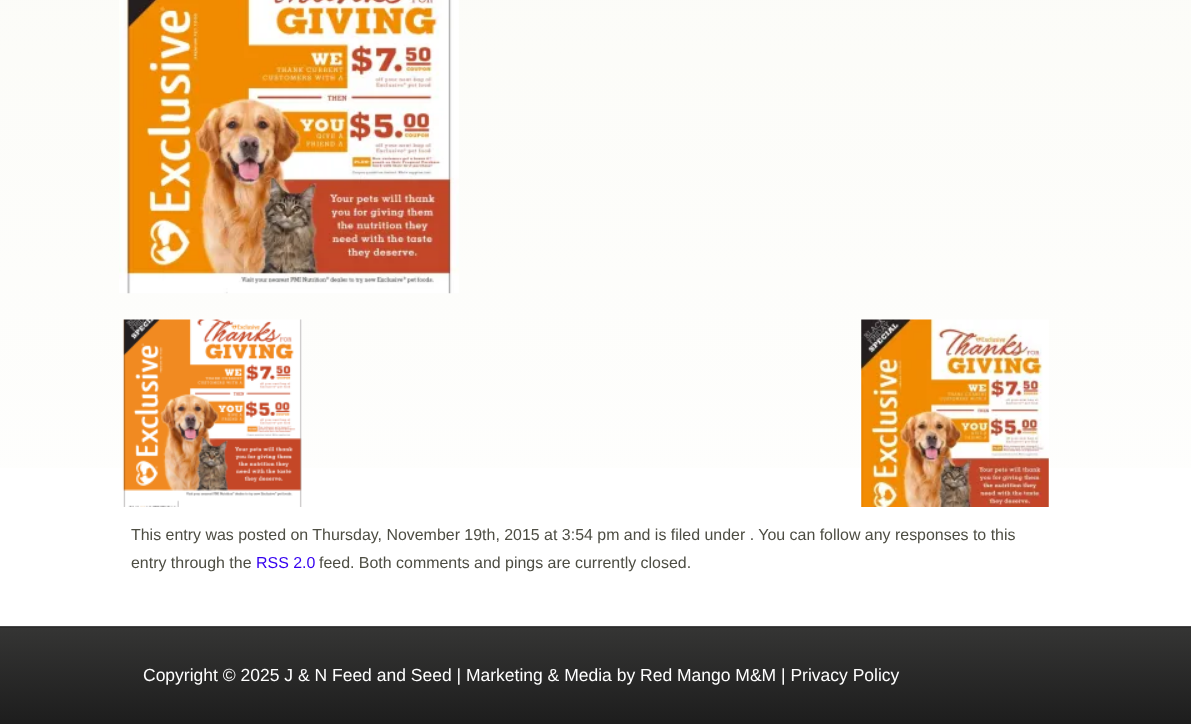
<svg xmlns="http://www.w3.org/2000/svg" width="1191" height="724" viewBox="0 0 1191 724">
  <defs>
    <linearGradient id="g1" gradientUnits="userSpaceOnUse" x1="596" y1="-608" x2="596" y2="724"><stop offset="0" stop-color="rgb(249,249,242)"/><stop offset="1" stop-color="rgb(255,255,255)"/></linearGradient>
    <linearGradient id="g2" gradientUnits="userSpaceOnUse" x1="596" y1="627" x2="596" y2="724"><stop offset="0" stop-color="rgb(53,53,52)"/><stop offset="1" stop-color="rgb(29,29,29)"/></linearGradient>
  </defs>
  <rect width="100%" height="100%" fill="rgb(255,255,255)"/>
  <rect x="0" y="0" width="1191" height="468" fill="url(#g1)"/>
  <image x="119" y="0" width="340" height="294" href="pic1.png"/>
  <image x="122" y="319" width="180" height="188" href="pic2.png"/>
  <image x="861" y="319" width="188" height="188" href="pic3.png"/>
  <g font-family="Liberation Sans" font-size="15.95" fill="rgb(77,77,67)">
    <text>
      <tspan x="131" y="540">This entry was posted on Thursday, November 19th, 2015 at 3:54 pm and is filed under . You can follow any responses to this</tspan>
      <tspan x="131" y="568">entry through the</tspan>
    </text>
  </g>
  <text x="256" y="568" font-family="Liberation Sans" font-size="15.95" fill="rgb(52,0,240)">RSS 2.0</text>
  <text x="319" y="568" font-family="Liberation Sans" font-size="15.95" fill="rgb(77,77,67)">feed. Both comments and pings are currently closed.</text>
  <rect x="0" y="627" width="1191" height="1" fill="rgb(43,43,43)"/>
  <rect x="0" y="628" width="1191" height="96" fill="url(#g2)"/>
  <rect x="0" y="626" width="1191" height="1" fill="rgb(70,70,70)"/>
  <text x="143" y="681" font-family="Liberation Sans" font-size="17.5" fill="rgb(255,255,255)">Copyright © 2025 J &amp; N Feed and Seed | Marketing &amp; Media by Red Mango M&amp;M | Privacy Policy</text>
</svg>
